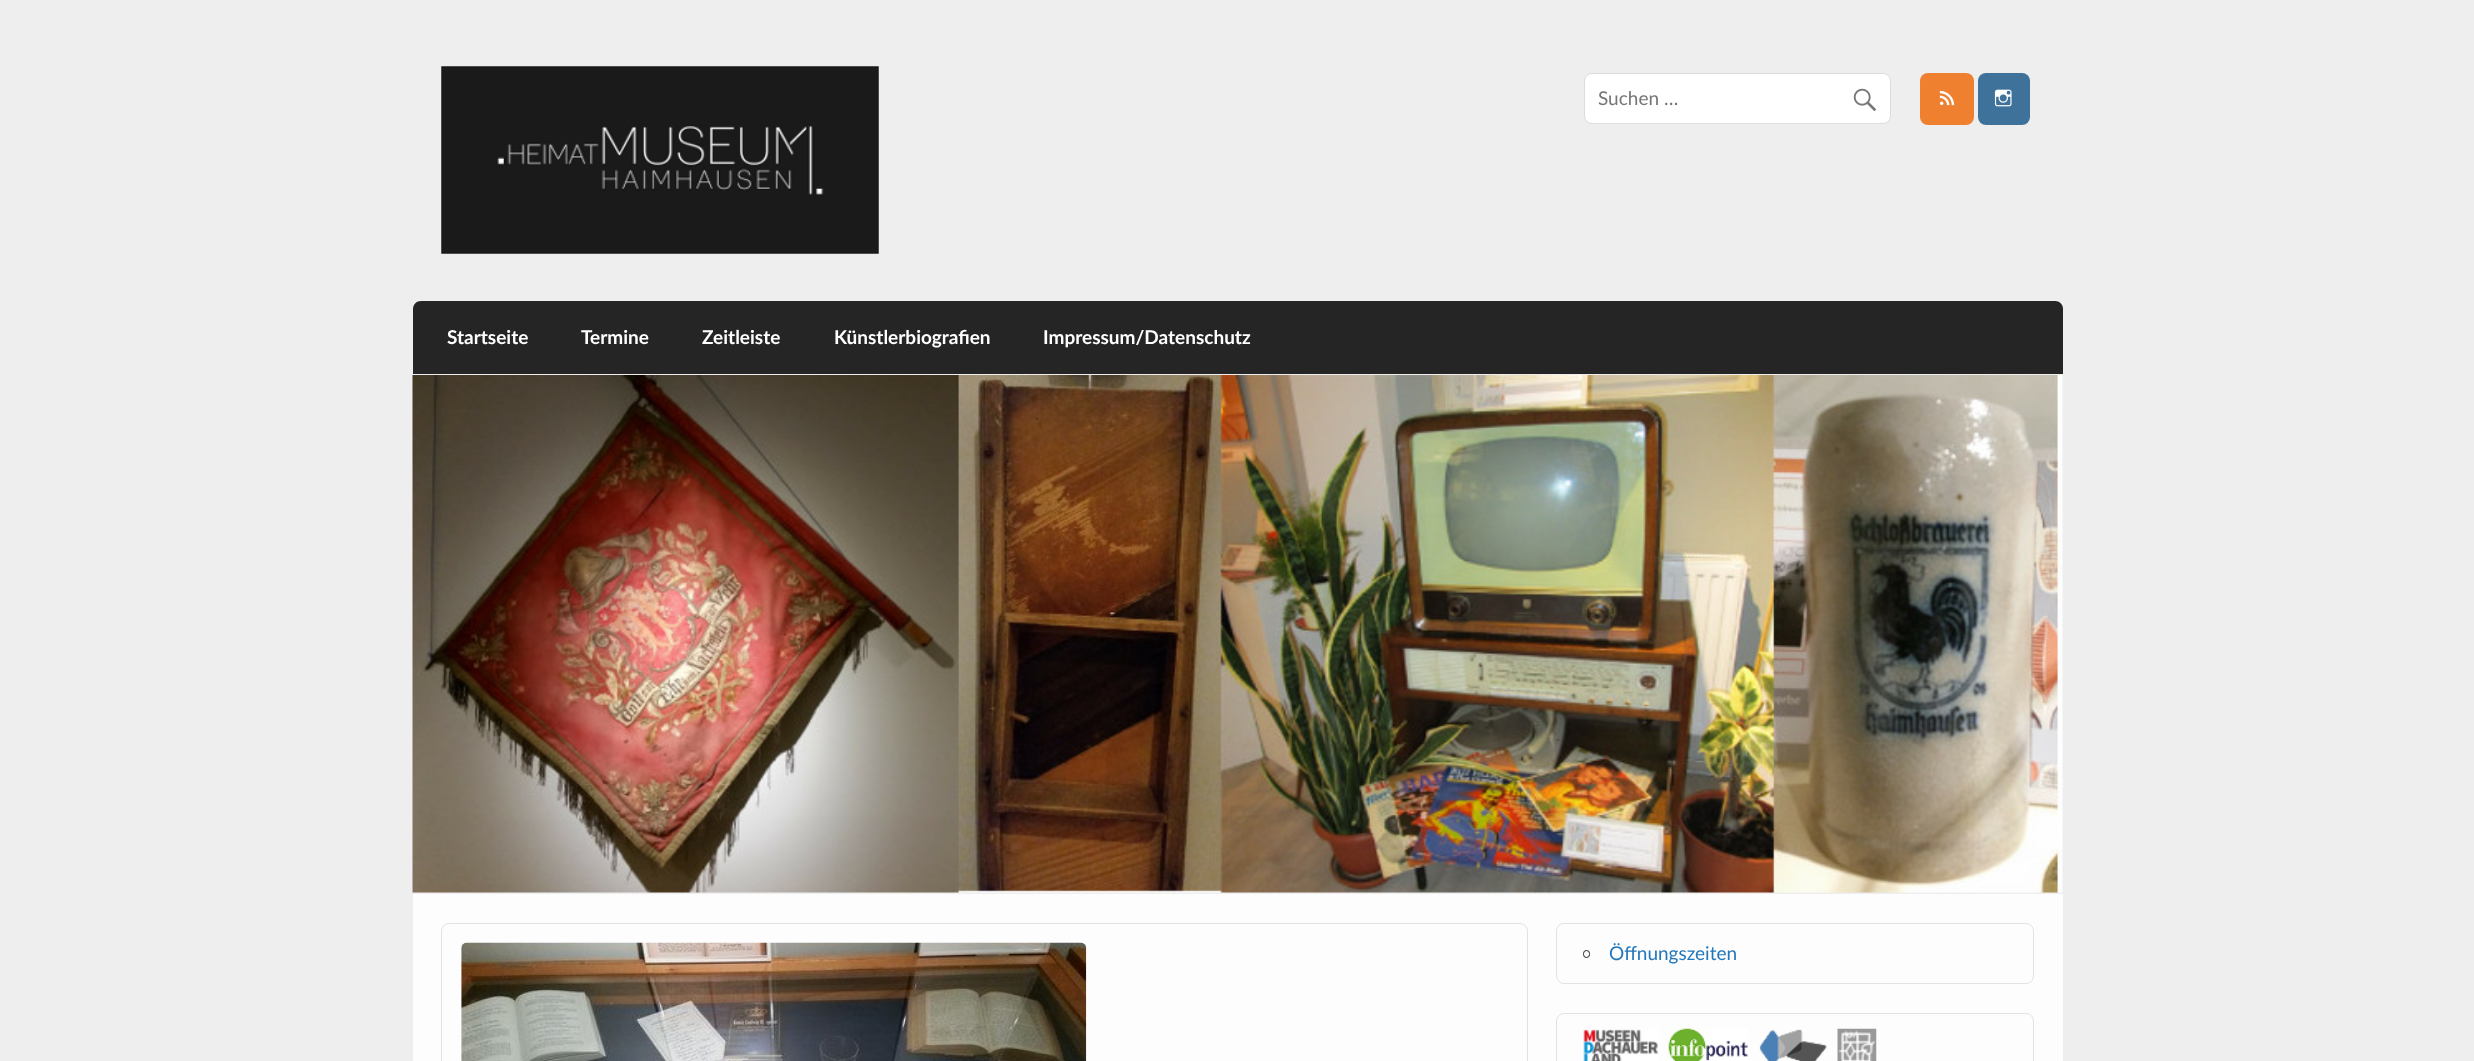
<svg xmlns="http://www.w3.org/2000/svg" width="2474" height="1061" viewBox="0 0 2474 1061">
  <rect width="100%" height="100%" fill="rgb(238,238,238)"/>
  <image x="441" y="66" width="438" height="188" href="pic1.png"/>
  <rect x="1584.5" y="73.5" width="306" height="50" rx="7.5" fill="rgb(255,255,255)" stroke="rgb(221,221,221)"/>
  <text x="1598" y="105" font-family="Lato" font-size="19" fill="rgb(117,117,117)">Suchen …</text>
  <image x="1853" y="88" width="24" height="24" href="pic2.png"/>
  <rect x="1920" y="73" width="54" height="52" rx="8" fill="rgb(238,128,47)"/>
  <image x="1939" y="90" width="16" height="16" href="pic3.png"/>
  <rect x="1978" y="73" width="52" height="52" rx="8" fill="rgb(63,114,155)"/>
  <image x="1994" y="89" width="18" height="18" href="pic4.png"/>
  <path d="M421 301H2055C2059.5 301 2063 304.5 2063 309V374H413V309C413 304.5 416.5 301 421 301Z" fill="rgb(37,37,37)"/>
  <g font-family="Lato" font-size="19" font-weight="bold" fill="rgb(255,255,255)">
    <text x="447" y="344">Startseite</text>
    <text x="581" y="344">Termine</text>
    <text x="702" y="344">Zeitleiste</text>
    <text x="834" y="344">Künstlerbiografien</text>
    <text x="1043" y="344">Impressum/Datenschutz</text>
  </g>
  <image x="412" y="375" width="1651" height="518" href="pic5.png"/>
  <rect x="413" y="894" width="1650" height="167" fill="rgb(253,253,253)"/>
  <rect x="441.5" y="923.5" width="1086" height="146" rx="7.5" fill="none" stroke="rgb(226,226,226)"/>
  <image x="461" y="942" width="626" height="119" href="pic6.png"/>
  <rect x="1556.5" y="923.5" width="477" height="60" rx="7.5" fill="none" stroke="rgb(226,226,226)"/>
  <rect x="1583.5" y="950.5" width="6" height="7" rx="3" fill="none" stroke="rgb(37,37,37)"/>
  <text x="1609" y="960" font-family="Lato" font-size="19" fill="rgb(34,119,187)">Öffnungszeiten</text>
  <rect x="1556.5" y="1013.5" width="477" height="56" rx="7.5" fill="none" stroke="rgb(226,226,226)"/>
  <image x="1583" y="1029" width="76" height="32" href="pic7.png"/>
  <image x="1668" y="1028" width="80" height="33" href="pic8.png"/>
  <image x="1759" y="1029" width="68" height="32" href="pic9.png"/>
  <image x="1837" y="1028" width="40" height="33" href="pic10.png"/>
</svg>
